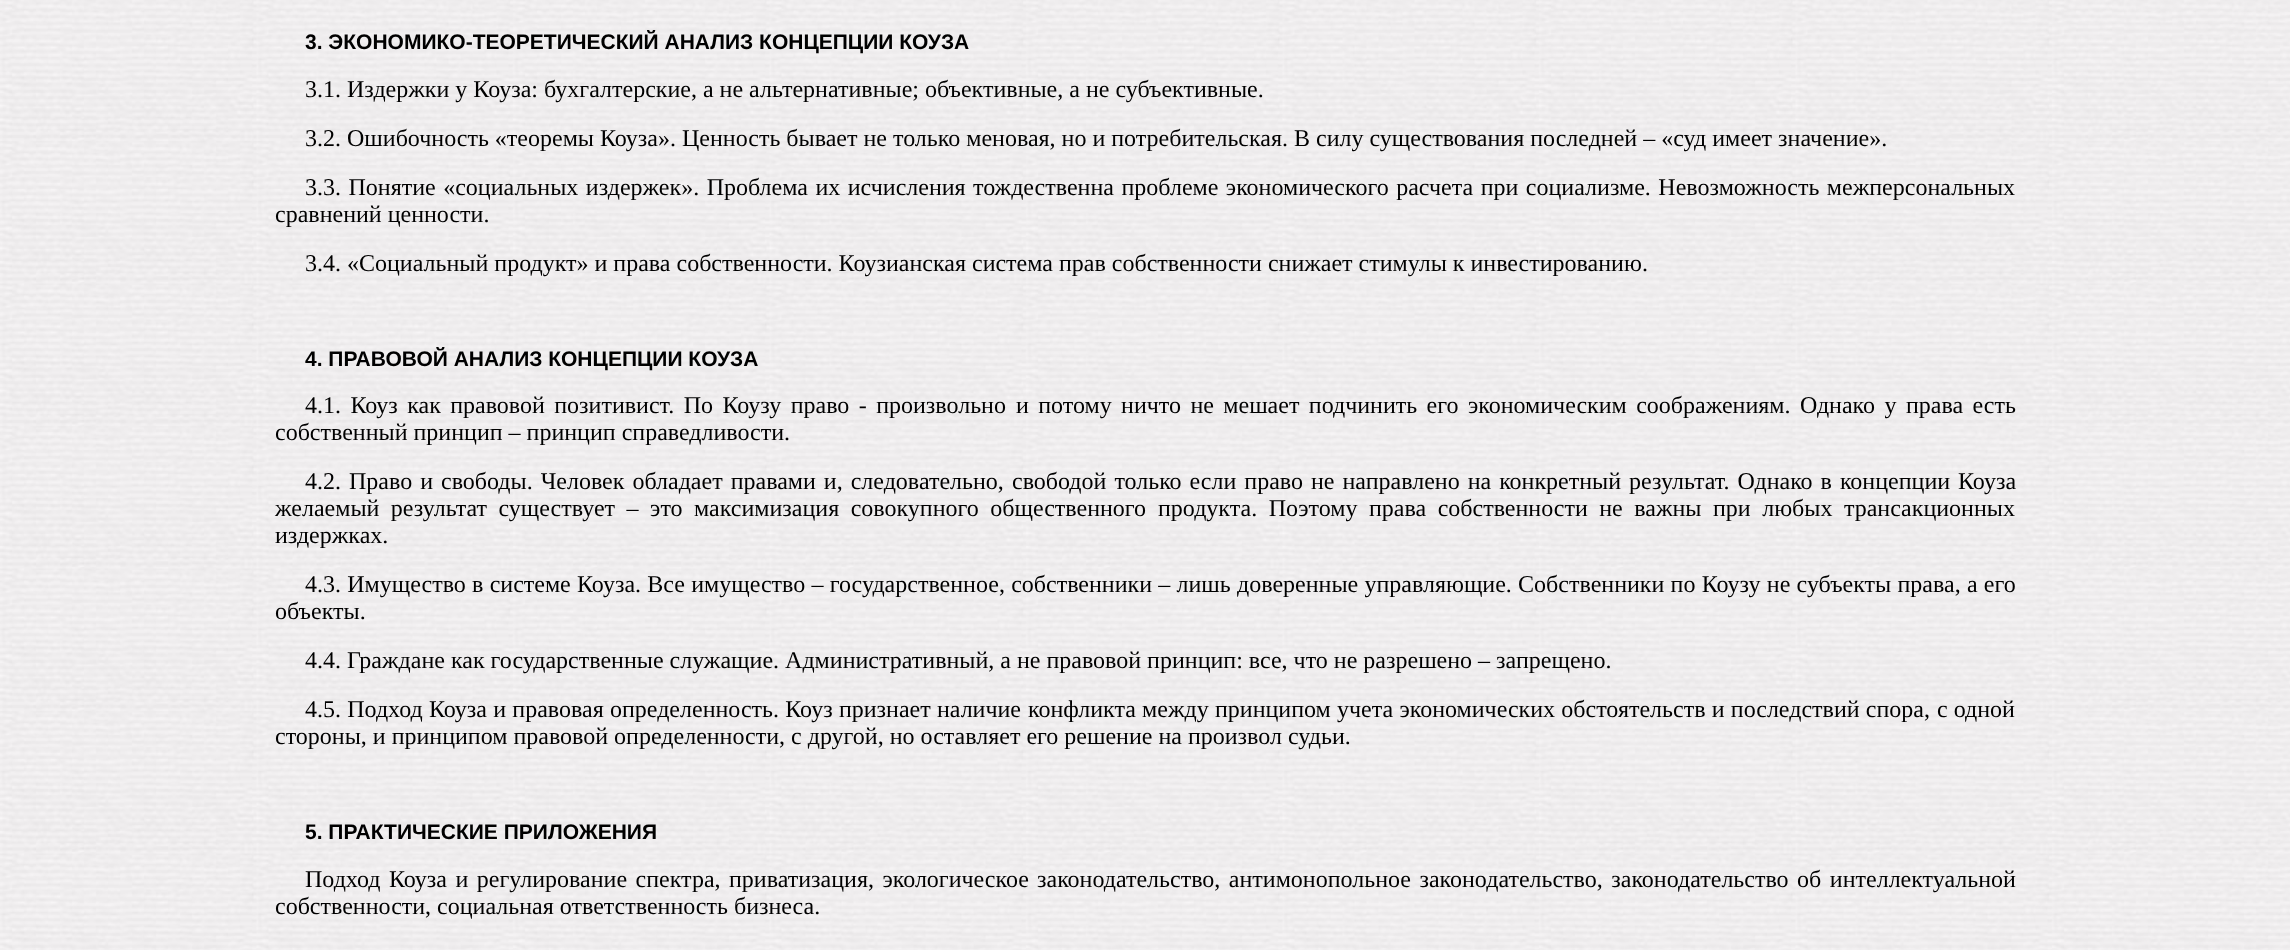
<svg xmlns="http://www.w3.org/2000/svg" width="2290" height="950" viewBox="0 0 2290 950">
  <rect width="100%" height="100%" fill="rgb(255,255,255)"/>
  <image x="0" y="0" width="2290" height="950" href="pic1.png"/>
  <text x="305" y="49" font-family="Liberation Sans" font-size="21" font-weight="bold" fill="rgb(0,0,0)">3. ЭКОНОМИКО-ТЕОРЕТИЧЕСКИЙ АНАЛИЗ КОНЦЕПЦИИ КОУЗА</text>
  <g font-family="Liberation Serif" font-size="24" fill="rgb(0,0,0)">
    <text x="305" y="97">3.1. Издержки у Коуза: бухгалтерские, а не альтернативные; объективные, а не субъективные.</text>
    <text x="305" y="146">3.2. Ошибочность «теоремы Коуза». Ценность бывает не только меновая, но и потребительская. В силу существования последней – «суд имеет значение».</text>
    <text x="305" y="195" word-spacing="1.5">3.3. Понятие «социальных издержек». Проблема их исчисления</text>
    <text x="973" y="195" word-spacing="1.5">тождественна проблеме экономического расчета при социализме. Невозможность межперсональных</text>
    <text x="275" y="222">сравнений ценности.</text>
    <text x="305" y="271">3.4. «Социальный продукт» и права собственности. Коузианская система прав собственности снижает стимулы к инвестированию.</text>
  </g>
  <text x="305" y="366" font-family="Liberation Sans" font-size="21" font-weight="bold" fill="rgb(0,0,0)">4. ПРАВОВОЙ АНАЛИЗ КОНЦЕПЦИИ КОУЗА</text>
  <g font-family="Liberation Serif" font-size="24" fill="rgb(0,0,0)">
    <text x="305" y="413" word-spacing="3.4">4.1. Коуз как правовой позитивист. По Коузу право - произвольно</text>
    <text x="1016" y="413" word-spacing="3.4">и потому ничто не мешает подчинить его экономическим соображениям. Однако у</text>
    <text x="1906" y="413" word-spacing="3.4">права есть</text>
    <text x="275" y="440">собственный принцип – принцип справедливости.</text>
    <text x="305" y="489" word-spacing="2">4.2. Право и свободы. Человек обладает правами и, следовательно,</text>
    <text x="1012" y="489" word-spacing="2">свободой только если право не направлено на конкретный результат. Однако в концепции</text>
    <text x="1958" y="489">Коуза</text>
    <text x="275" y="516" word-spacing="5.5">желаемый результат существует – это максимизация совокупного общественного</text>
    <text x="1158" y="516" word-spacing="5.5">продукта. Поэтому права собственности не важны при любых трансакционных</text>
    <text x="275" y="543">издержках.</text>
    <text x="305" y="592" word-spacing="0.25">4.3. Имущество в системе Коуза. Все имущество – государственное, собственники – лишь доверенные управляющие. Собственники по Коузу не субъекты права, а его</text>
    <text x="275" y="619">объекты.</text>
    <text x="305" y="668">4.4. Граждане как государственные служащие. Административный, а не правовой принцип: все, что не разрешено – запрещено.</text>
    <text x="305" y="717" word-spacing="0.25">4.5. Подход Коуза и правовая определенность. Коуз признает наличие</text>
    <text x="1028" y="717" word-spacing="0.25">конфликта между принципом учета экономических обстоятельств и последствий спора,</text>
    <text x="1937" y="717">с одной</text>
    <text x="275" y="744">стороны, и принципом правовой определенности, с другой, но оставляет его решение на произвол судьи.</text>
  </g>
  <text x="305" y="839" font-family="Liberation Sans" font-size="21" font-weight="bold" fill="rgb(0,0,0)">5. ПРАКТИЧЕСКИЕ ПРИЛОЖЕНИЯ</text>
  <g font-family="Liberation Serif" font-size="24" fill="rgb(0,0,0)">
    <text x="305" y="887" word-spacing="2.5">Подход Коуза и регулирование спектра, приватизация, экологическое</text>
    <text x="1037" y="887" word-spacing="2.5">законодательство, антимонопольное законодательство, законодательство об интеллектуальной</text>
    <text x="275" y="914">собственности, социальная ответственность бизнеса.</text>
  </g>
</svg>
